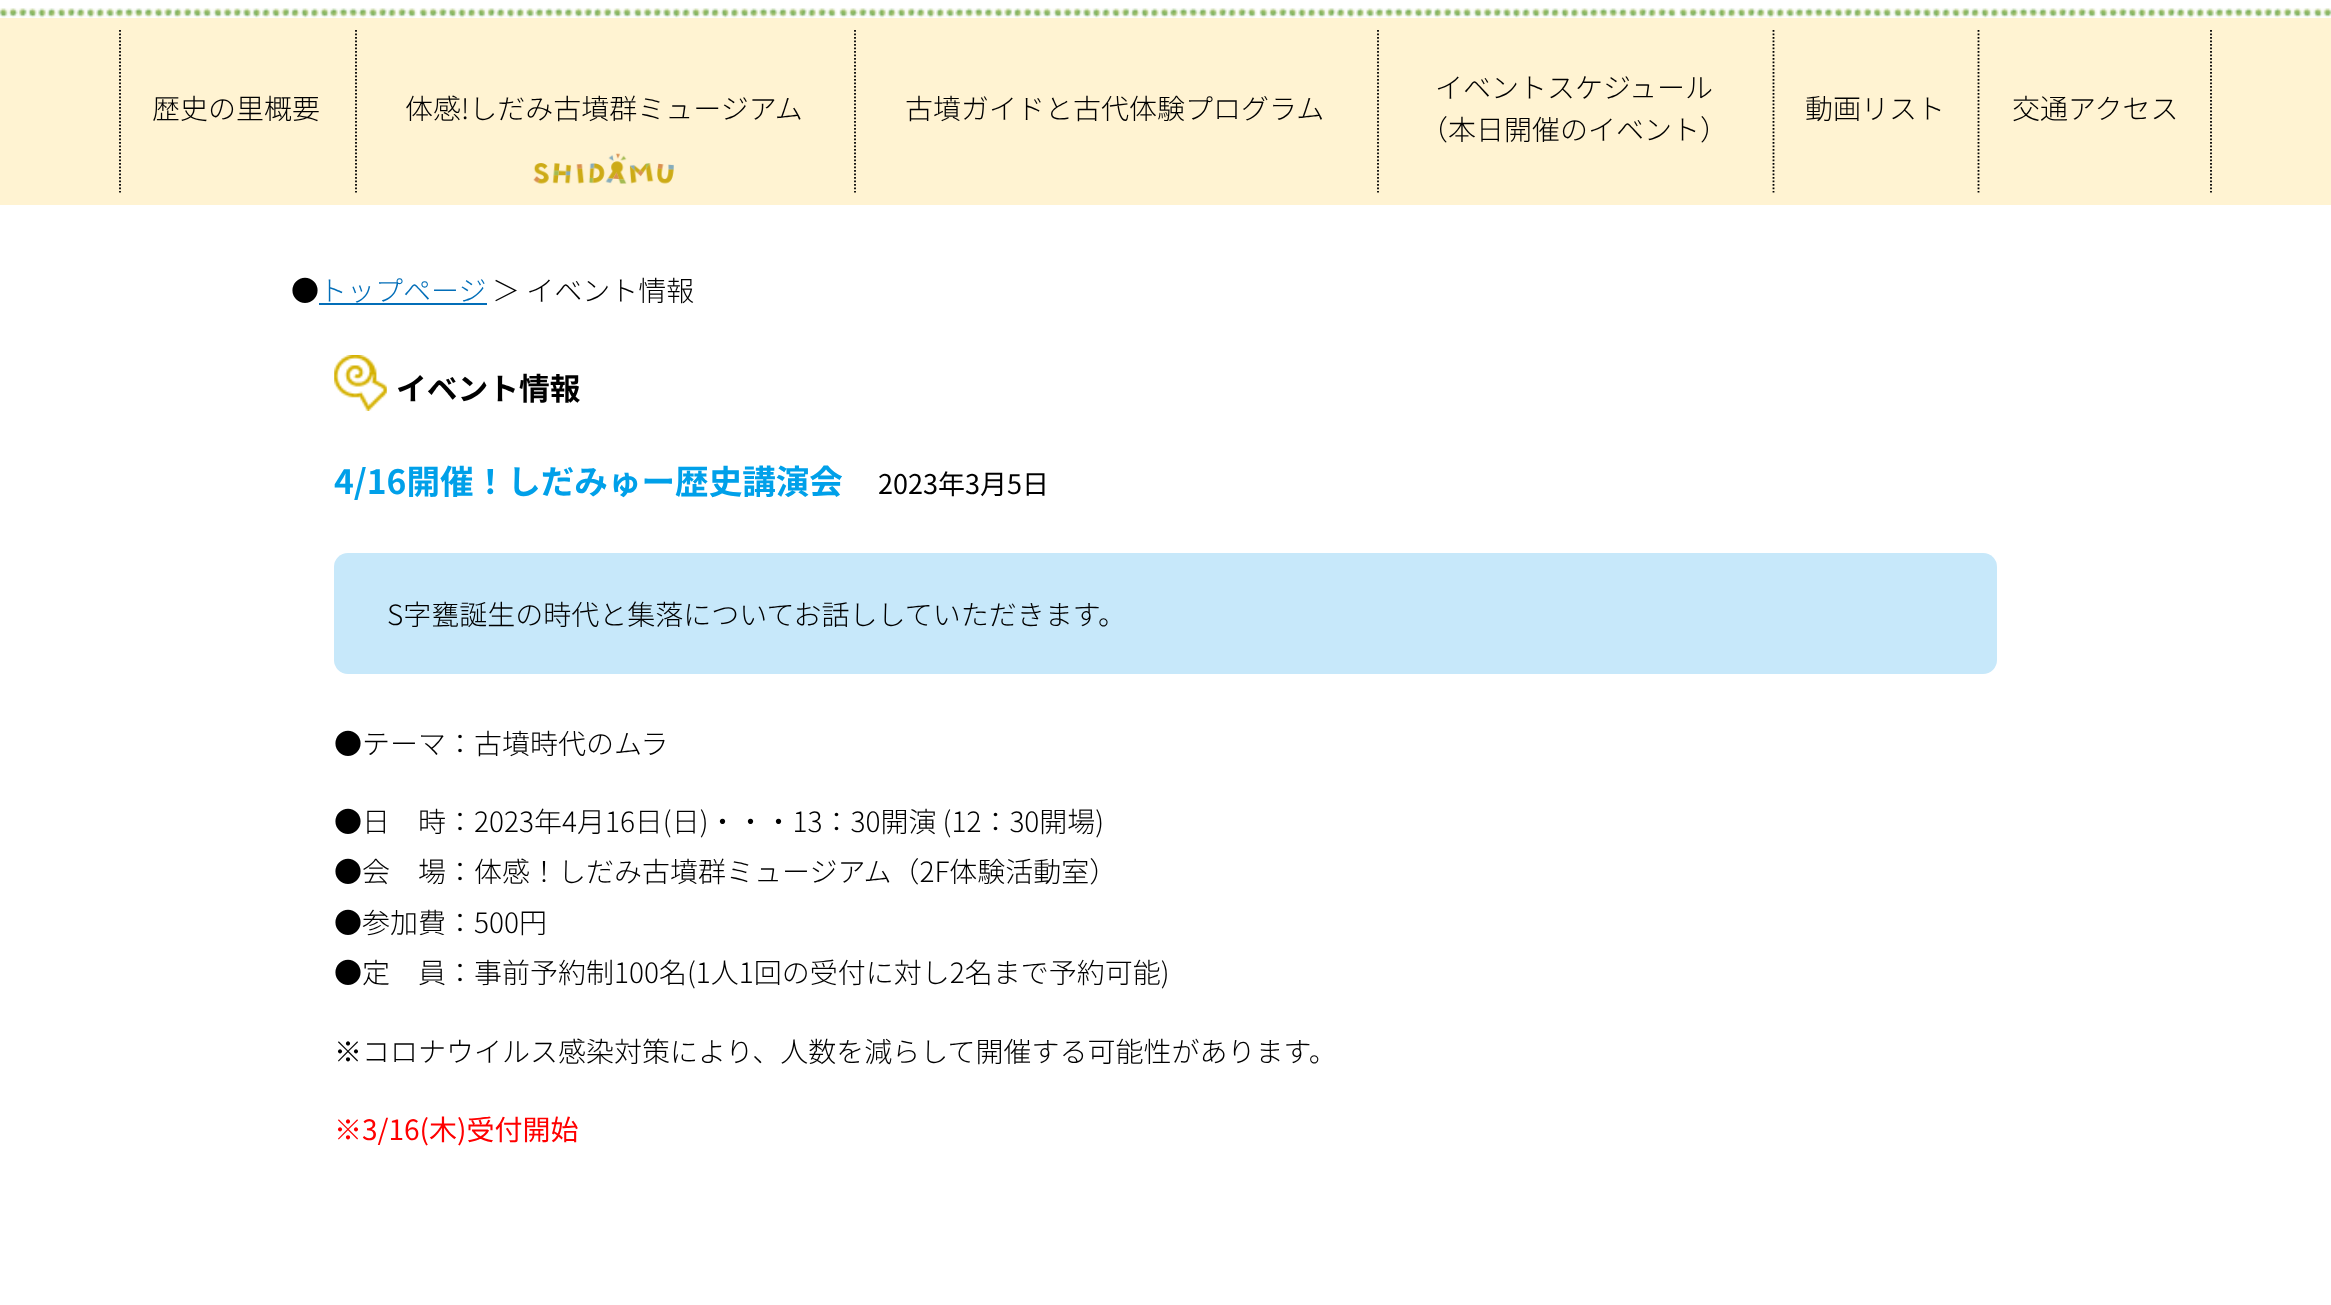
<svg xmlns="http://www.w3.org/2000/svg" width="2331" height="1305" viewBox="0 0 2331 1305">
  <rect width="100%" height="100%" fill="rgb(255,255,255)"/>
  <image x="0" y="8" width="2331" height="10" href="pic1.png"/>
  <rect x="0" y="18" width="2331" height="187" fill="rgb(255,243,210)"/>
  <path d="M120 30V192.5" fill="none" stroke="rgb(0,0,0)" stroke-width="1.8" stroke-dasharray="1.75 1.75"/>
  <text x="152" y="119" font-family="Noto Sans JP" font-size="28" font-weight="300" fill="rgb(0,0,0)">歴史の里概要</text>
  <path d="M356 30V192.5" fill="none" stroke="rgb(0,0,0)" stroke-width="1.8" stroke-dasharray="1.75 1.75"/>
  <text x="405" y="119" font-family="Noto Sans JP" font-size="28" font-weight="300" fill="rgb(0,0,0)">体感!しだみ古墳群ミュージアム</text>
  <image x="533" y="153" width="141" height="31" href="pic2.png"/>
  <path d="M855 30V192.5" fill="none" stroke="rgb(0,0,0)" stroke-width="1.8" stroke-dasharray="1.75 1.75"/>
  <text x="905" y="119" font-family="Noto Sans JP" font-size="28" font-weight="300" fill="rgb(0,0,0)">古墳ガイドと古代体験プログラム</text>
  <path d="M1378 30V192.5" fill="none" stroke="rgb(0,0,0)" stroke-width="1.8" stroke-dasharray="1.75 1.75"/>
  <g font-family="Noto Sans JP" font-size="28" font-weight="300" fill="rgb(0,0,0)">
    <text x="1435" y="98">イベントスケジュール</text>
    <text x="1420" y="140">（本日開催のイベント）</text>
  </g>
  <path d="M1773.5 30V192.5" fill="none" stroke="rgb(0,0,0)" stroke-width="1.8" stroke-dasharray="1.75 1.75"/>
  <text x="1805" y="119" font-family="Noto Sans JP" font-size="28" font-weight="300" fill="rgb(0,0,0)">動画リスト</text>
  <path d="M2211 30V192.5" fill="none" stroke="rgb(0,0,0)" stroke-width="1.8" stroke-dasharray="1.75 1.75"/>
  <path d="M1978.5 30V192.5" fill="none" stroke="rgb(0,0,0)" stroke-width="1.8" stroke-dasharray="1.75 1.75"/>
  <g font-family="Noto Sans JP" font-size="28" font-weight="300" fill="rgb(0,0,0)">
    <text x="2012" y="119">交通アクセス</text>
    <text x="291" y="301">●</text>
  </g>
  <text x="319" y="301" font-family="Noto Sans JP" font-size="28" font-weight="300" fill="rgb(3,110,184)">トップページ</text>
  <rect x="319" y="303" width="168" height="2" fill="rgb(3,110,184)"/>
  <text x="492" y="301" font-family="Noto Sans JP" font-size="28" font-weight="300" fill="rgb(0,0,0)">＞ イベント情報</text>
  <image x="334" y="355" width="53" height="56" href="pic3.png"/>
  <text x="396" y="400" font-family="Noto Sans JP" font-size="30.75" font-weight="bold" fill="rgb(0,0,0)">イベント情報</text>
  <text x="334" y="494" font-family="Noto Sans JP" font-size="33.6" font-weight="bold" fill="rgb(0,160,233)">4/16開催！しだみゅー歴史講演会</text>
  <text x="878" y="494" font-family="Noto Sans JP" font-size="27" fill="rgb(0,0,0)">2023年3月5日</text>
  <rect x="334" y="553" width="1663" height="121" rx="14" fill="rgb(199,232,250)"/>
  <g font-family="Noto Sans JP" font-size="28" font-weight="300" fill="rgb(0,0,0)">
    <text x="387" y="625">S字甕誕生の時代と集落についてお話ししていただきます。</text>
    <text x="334" y="754">●テーマ：古墳時代のムラ</text>
    <text>
      <tspan x="334" y="832">●日　時：2023年4月16日(日)・・・13：30開演 (12：30開場)</tspan>
      <tspan x="334" y="882">●会　場：体感！しだみ古墳群ミュージアム（2F体験活動室）</tspan>
      <tspan x="334" y="933">●参加費：500円</tspan>
      <tspan x="334" y="983">●定　員：事前予約制100名(1人1回の受付に対し2名まで予約可能)</tspan>
    </text>
    <text x="334" y="1062">※コロナウイルス感染対策により、人数を減らして開催する可能性があります。</text>
  </g>
  <text x="334" y="1140" font-family="Noto Sans JP" font-size="28" fill="rgb(255,0,0)">※3/16(木)受付開始</text>
</svg>
